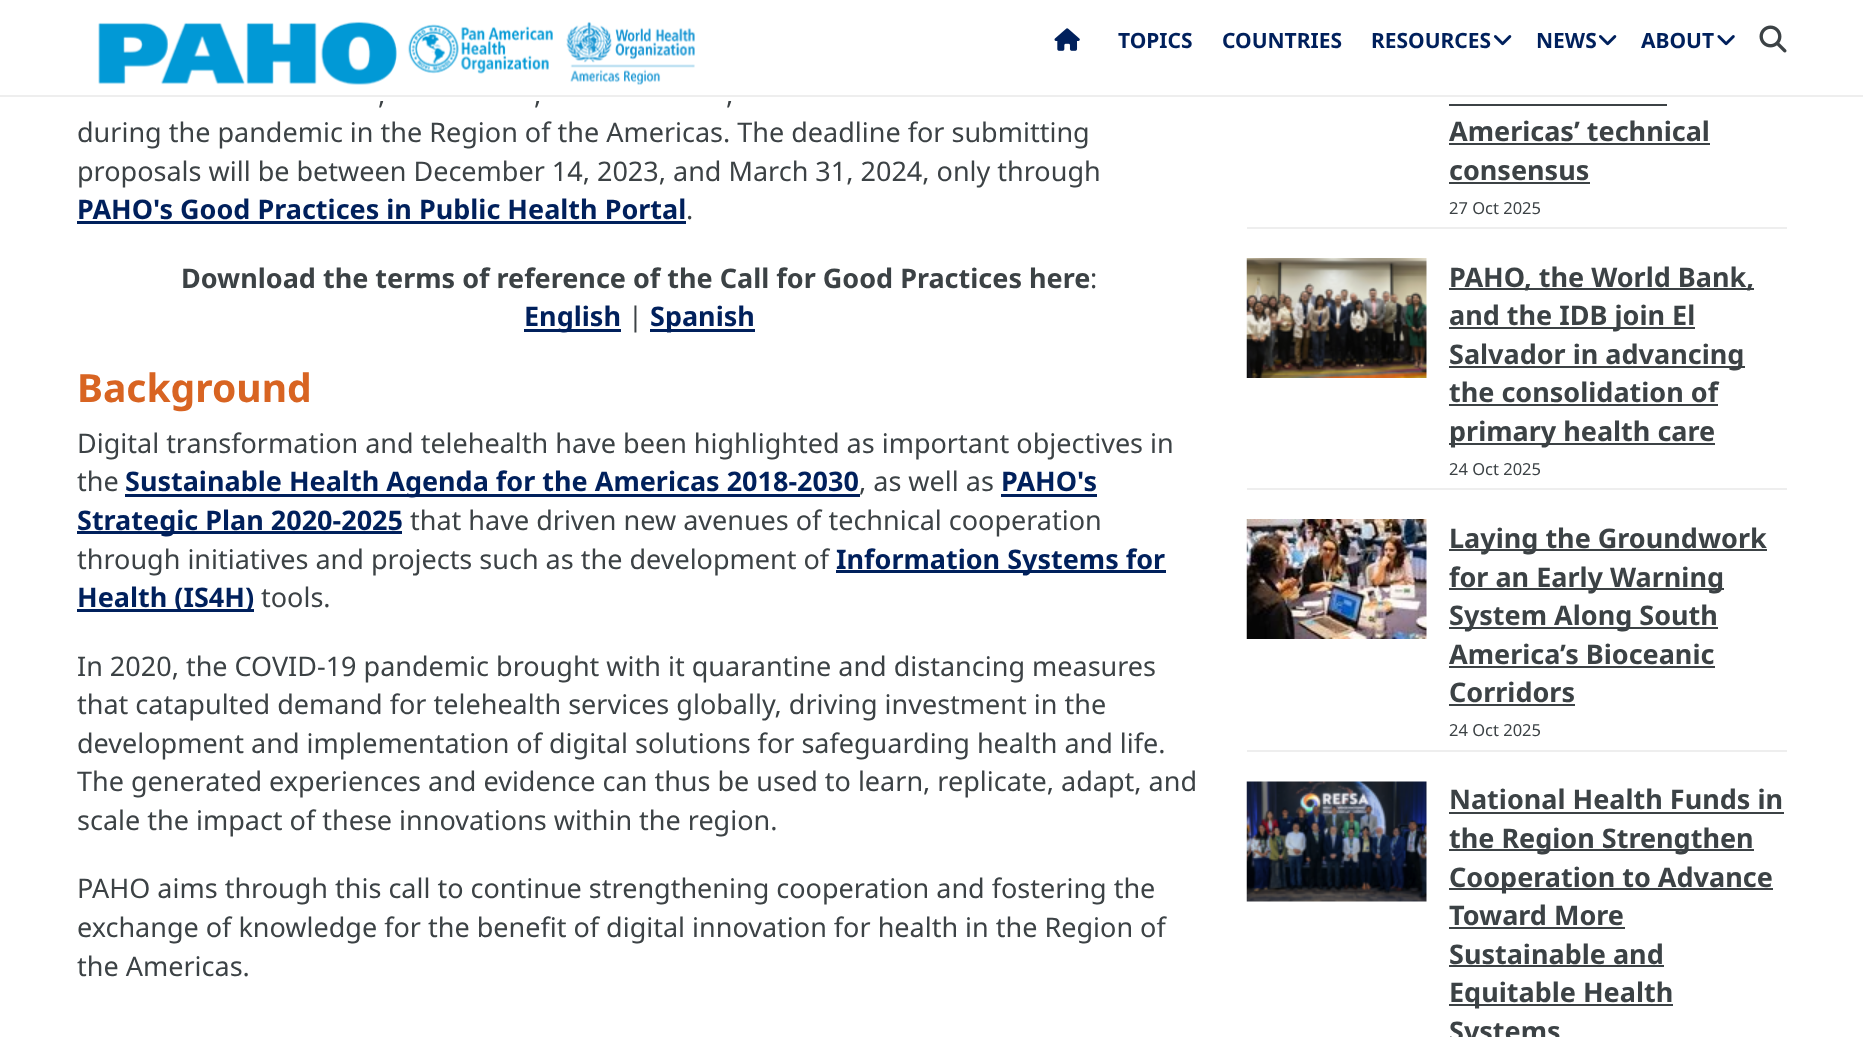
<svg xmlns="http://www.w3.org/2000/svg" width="1863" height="1037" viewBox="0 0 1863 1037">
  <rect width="100%" height="100%" fill="rgb(255,255,255)"/>
  <rect x="0" y="95" width="1863" height="2" fill="rgb(238,238,238)"/>
  <image x="98" y="21" width="597" height="64" href="pic1.png"/>
  <image x="1054" y="28" width="26" height="23" href="pic2.png"/>
  <g font-family="Noto Sans" font-size="21" font-weight="bold" fill="rgb(0,32,92)">
    <text x="1118" y="48">TOPICS</text>
    <text x="1222" y="48">COUNTRIES</text>
    <text x="1371" y="48">RESOURCES</text>
  </g>
  <image x="1494" y="35" width="18" height="11" href="pic3.png"/>
  <text x="1536" y="48" font-family="Noto Sans" font-size="21" font-weight="bold" fill="rgb(0,32,92)">NEWS</text>
  <image x="1599" y="35" width="18" height="11" href="pic3.png"/>
  <text x="1641" y="48" font-family="Noto Sans" font-size="21" font-weight="bold" fill="rgb(0,32,92)">ABOUT</text>
  <image x="1717" y="35" width="18" height="11" href="pic4.png"/>
  <image x="1759" y="25" width="28" height="28" href="pic5.png"/>
  <g font-family="Noto Sans" font-size="27" fill="rgb(60,66,69)">
    <text x="378" y="104">,</text>
    <text x="534" y="104">,</text>
    <text x="726" y="104">,</text>
    <text>
      <tspan x="77" y="142">during the pandemic in the Region of the Americas. The deadline for submitting</tspan>
      <tspan x="77" y="181">proposals will be between December 14, 2023, and March 31, 2024, only through</tspan>
    </text>
  </g>
  <text x="77" y="219" font-family="Noto Sans" font-size="27" font-weight="bold" fill="rgb(0,32,92)">PAHO's Good Practices in Public Health Portal</text>
  <rect x="77" y="221" width="609" height="3" fill="rgb(0,32,92)"/>
  <text x="686" y="219" font-family="Noto Sans" font-size="27" fill="rgb(60,66,69)">.</text>
  <text x="181" y="288" font-family="Noto Sans" font-size="27" font-weight="bold" fill="rgb(60,66,69)">Download the terms of reference of the Call for Good Practices here</text>
  <text x="1090" y="288" font-family="Noto Sans" font-size="27" fill="rgb(60,66,69)">:</text>
  <rect x="524" y="329" width="97" height="3" fill="rgb(0,32,92)"/>
  <text x="524" y="326" font-family="Noto Sans" font-size="27" font-weight="bold" fill="rgb(0,32,92)">English</text>
  <text x="628" y="326" font-family="Noto Sans" font-size="27" fill="rgb(60,66,69)">|</text>
  <rect x="650" y="329" width="105" height="3" fill="rgb(0,32,92)"/>
  <text x="650" y="326" font-family="Noto Sans" font-size="27" font-weight="bold" fill="rgb(0,32,92)">Spanish</text>
  <text x="77" y="402" font-family="Noto Sans" font-size="39" font-weight="bold" fill="rgb(216,100,34)">Background</text>
  <g font-family="Noto Sans" font-size="27" fill="rgb(60,66,69)">
    <text>
      <tspan x="77" y="453">Digital transformation and telehealth have been highlighted as important objectives in</tspan>
      <tspan x="77" y="491">the</tspan>
    </text>
  </g>
  <rect x="125" y="494" width="735" height="3" fill="rgb(0,32,92)"/>
  <text x="125" y="491" font-family="Noto Sans" font-size="27" font-weight="bold" fill="rgb(0,32,92)">Sustainable Health Agenda for the Americas 2018-2030</text>
  <text x="859" y="491" font-family="Noto Sans" font-size="27" fill="rgb(60,66,69)">, as well as</text>
  <text x="1001" y="491" font-family="Noto Sans" font-size="27" font-weight="bold" fill="rgb(0,32,92)">PAHO's</text>
  <rect x="1001" y="494" width="96" height="3" fill="rgb(0,32,92)"/>
  <rect x="77" y="531" width="325" height="3" fill="rgb(0,32,92)"/>
  <text x="77" y="530" font-family="Noto Sans" font-size="27" font-weight="bold" fill="rgb(0,32,92)">Strategic Plan 2020-2025</text>
  <g font-family="Noto Sans" font-size="27" fill="rgb(60,66,69)">
    <text x="410" y="530">that have driven new avenues of technical cooperation</text>
    <text x="77" y="569">through initiatives and projects such as the development of</text>
  </g>
  <rect x="836" y="570" width="330" height="3" fill="rgb(0,32,92)"/>
  <text x="836" y="569" font-family="Noto Sans" font-size="27" font-weight="bold" fill="rgb(0,32,92)">Information Systems for</text>
  <rect x="77" y="609" width="177" height="3" fill="rgb(0,32,92)"/>
  <text x="77" y="607" font-family="Noto Sans" font-size="27" font-weight="bold" fill="rgb(0,32,92)">Health (IS4H)</text>
  <g font-family="Noto Sans" font-size="27" fill="rgb(60,66,69)">
    <text x="261" y="607">tools.</text>
    <text>
      <tspan x="77" y="676">In 2020, the COVID-19 pandemic brought with it quarantine and distancing measures</tspan>
      <tspan x="77" y="714">that catapulted demand for telehealth services globally, driving investment in the</tspan>
      <tspan x="77" y="753">development and implementation of digital solutions for safeguarding health and life.</tspan>
      <tspan x="77" y="791">The generated experiences and evidence can thus be used to learn, replicate, adapt, and</tspan>
      <tspan x="77" y="830">scale the impact of these innovations within the region.</tspan>
    </text>
    <text>
      <tspan x="77" y="898">PAHO aims through this call to continue strengthening cooperation and fostering the</tspan>
      <tspan x="77" y="937">exchange of knowledge for the benefit of digital innovation for health in the Region of</tspan>
      <tspan x="77" y="976">the Americas.</tspan>
    </text>
  </g>
  <rect x="1247" y="227" width="540" height="2" fill="rgb(238,238,238)"/>
  <text x="1449" y="141" font-family="Noto Sans" font-size="27" font-weight="bold" fill="rgb(60,66,69)">Americas’ technical</text>
  <rect x="1449" y="104" width="218" height="2" fill="rgb(60,66,69)"/>
  <rect x="1449" y="143" width="261" height="2" fill="rgb(60,66,69)"/>
  <text x="1449" y="180" font-family="Noto Sans" font-size="27" font-weight="bold" fill="rgb(60,66,69)">consensus</text>
  <rect x="1449" y="182" width="141" height="2" fill="rgb(60,66,69)"/>
  <text x="1449" y="214" font-family="Noto Sans" font-size="16.5" fill="rgb(60,66,69)">27 Oct 2025</text>
  <rect x="1247" y="488" width="540" height="2" fill="rgb(238,238,238)"/>
  <image x="1246" y="258" width="181" height="120" href="pic6.png"/>
  <rect x="1449" y="288" width="305" height="2" fill="rgb(60,66,69)"/>
  <text x="1449" y="287" font-family="Noto Sans" font-size="27" font-weight="bold" fill="rgb(60,66,69)">PAHO, the World Bank,</text>
  <rect x="1449" y="327" width="246" height="2" fill="rgb(60,66,69)"/>
  <text x="1449" y="325" font-family="Noto Sans" font-size="27" font-weight="bold" fill="rgb(60,66,69)">and the IDB join El</text>
  <rect x="1449" y="366" width="296" height="2" fill="rgb(60,66,69)"/>
  <g font-family="Noto Sans" font-size="27" font-weight="bold" fill="rgb(60,66,69)">
    <text>
      <tspan x="1449" y="364">Salvador in advancing</tspan>
      <tspan x="1449" y="402">the consolidation of</tspan>
    </text>
  </g>
  <rect x="1449" y="404" width="269" height="2" fill="rgb(60,66,69)"/>
  <rect x="1449" y="443" width="266" height="2" fill="rgb(60,66,69)"/>
  <text x="1449" y="441" font-family="Noto Sans" font-size="27" font-weight="bold" fill="rgb(60,66,69)">primary health care</text>
  <text x="1449" y="475" font-family="Noto Sans" font-size="16.5" fill="rgb(60,66,69)">24 Oct 2025</text>
  <rect x="1247" y="750" width="540" height="2" fill="rgb(238,238,238)"/>
  <image x="1246" y="519" width="181" height="120" href="pic7.png"/>
  <rect x="1449" y="549" width="318" height="2" fill="rgb(60,66,69)"/>
  <text x="1449" y="548" font-family="Noto Sans" font-size="27" font-weight="bold" fill="rgb(60,66,69)">Laying the Groundwork</text>
  <rect x="1449" y="588" width="275" height="2" fill="rgb(60,66,69)"/>
  <text x="1449" y="587" font-family="Noto Sans" font-size="27" font-weight="bold" fill="rgb(60,66,69)">for an Early Warning</text>
  <rect x="1449" y="627" width="269" height="2" fill="rgb(60,66,69)"/>
  <g font-family="Noto Sans" font-size="27" font-weight="bold" fill="rgb(60,66,69)">
    <text>
      <tspan x="1449" y="625">System Along South</tspan>
      <tspan x="1449" y="664">America’s Bioceanic</tspan>
    </text>
  </g>
  <rect x="1449" y="666" width="266" height="2" fill="rgb(60,66,69)"/>
  <text x="1449" y="702" font-family="Noto Sans" font-size="27" font-weight="bold" fill="rgb(60,66,69)">Corridors</text>
  <rect x="1449" y="704" width="126" height="2" fill="rgb(60,66,69)"/>
  <text x="1449" y="736" font-family="Noto Sans" font-size="16.5" fill="rgb(60,66,69)">24 Oct 2025</text>
  <image x="1246" y="781" width="181" height="121" href="pic8.png"/>
  <text x="1449" y="809" font-family="Noto Sans" font-size="27" font-weight="bold" fill="rgb(60,66,69)">National Health Funds in</text>
  <rect x="1449" y="812" width="335" height="2" fill="rgb(60,66,69)"/>
  <rect x="1449" y="849" width="305" height="2" fill="rgb(60,66,69)"/>
  <text x="1449" y="848" font-family="Noto Sans" font-size="27" font-weight="bold" fill="rgb(60,66,69)">the Region Strengthen</text>
  <rect x="1449" y="888" width="324" height="2" fill="rgb(60,66,69)"/>
  <g font-family="Noto Sans" font-size="27" font-weight="bold" fill="rgb(60,66,69)">
    <text>
      <tspan x="1449" y="887">Cooperation to Advance</tspan>
      <tspan x="1449" y="925">Toward More</tspan>
    </text>
  </g>
  <rect x="1449" y="927" width="176" height="2" fill="rgb(60,66,69)"/>
  <text x="1449" y="964" font-family="Noto Sans" font-size="27" font-weight="bold" fill="rgb(60,66,69)">Sustainable and</text>
  <rect x="1449" y="965" width="215" height="2" fill="rgb(60,66,69)"/>
  <rect x="1449" y="1004" width="224" height="2" fill="rgb(60,66,69)"/>
  <g font-family="Noto Sans" font-size="27" font-weight="bold" fill="rgb(60,66,69)">
    <text>
      <tspan x="1449" y="1002">Equitable Health</tspan>
      <tspan x="1449" y="1041">Systems</tspan>
    </text>
  </g>
</svg>
